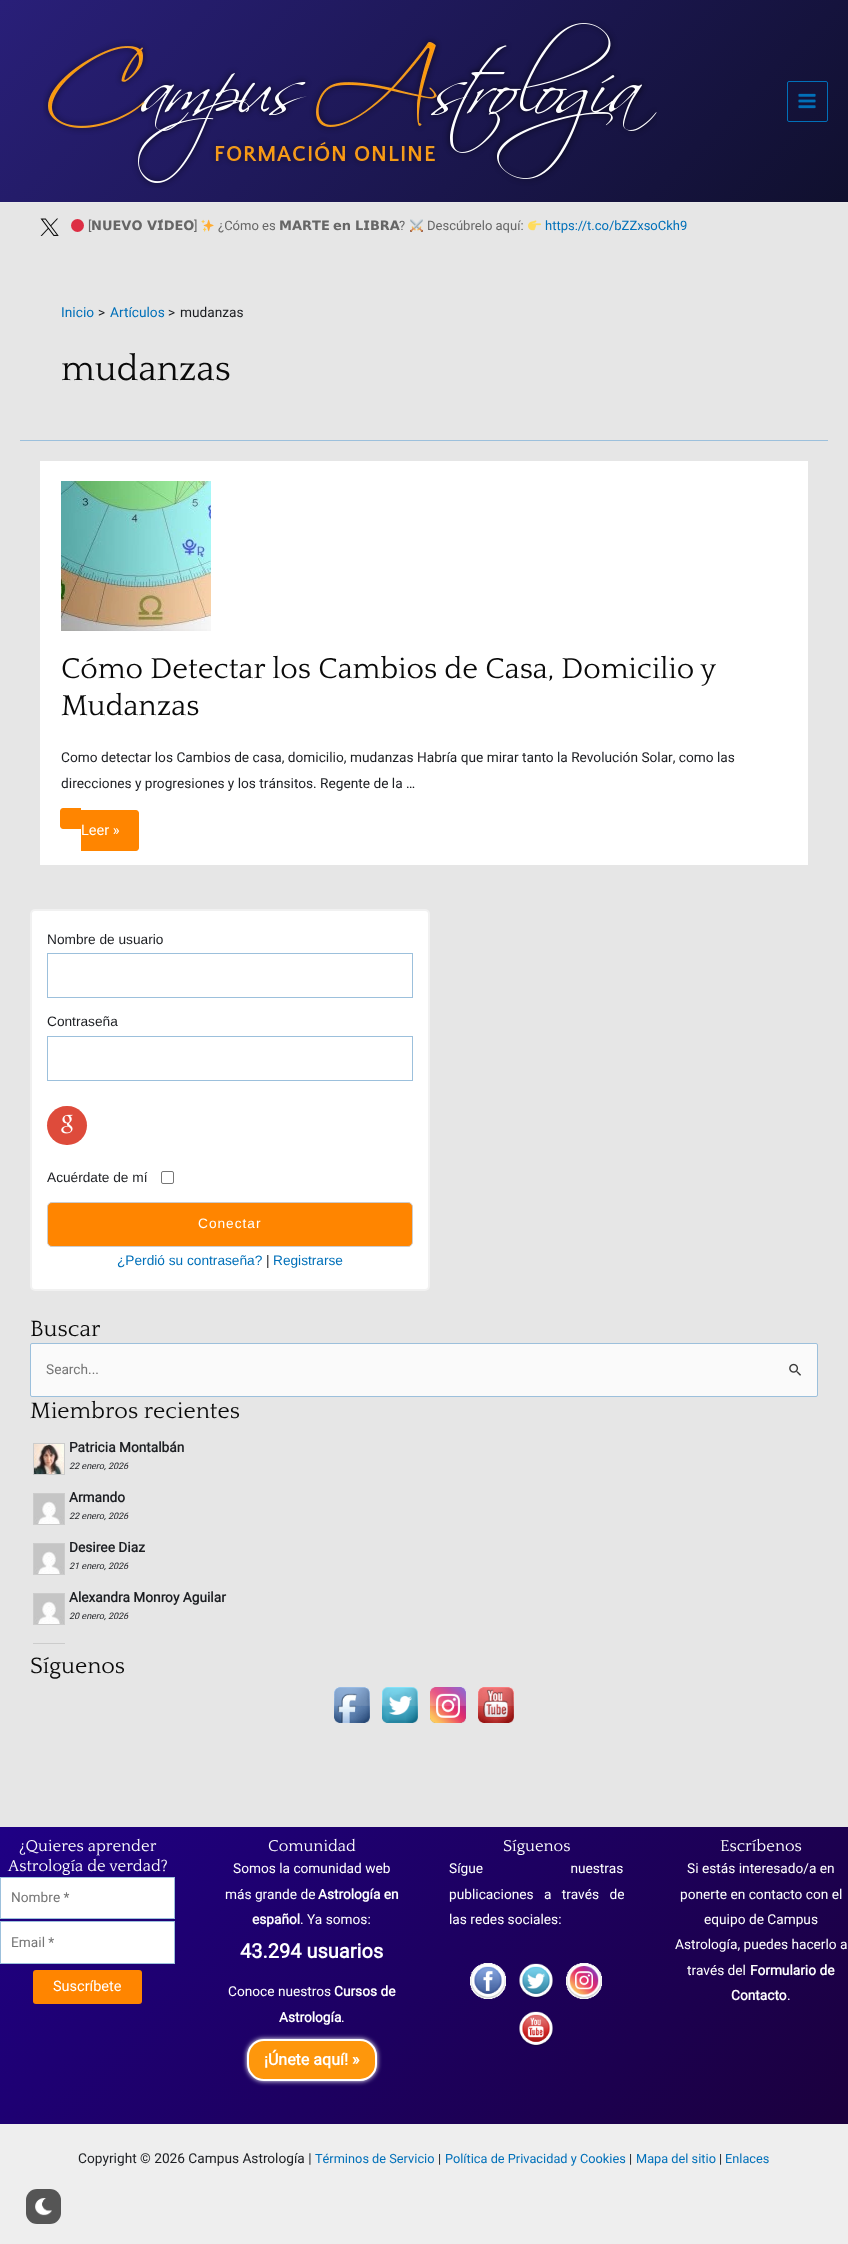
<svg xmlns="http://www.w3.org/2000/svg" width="848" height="2244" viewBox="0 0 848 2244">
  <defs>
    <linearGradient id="g1" gradientUnits="userSpaceOnUse" x1="161" y1="-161" x2="687" y2="364"><stop offset="0" stop-color="rgb(41,31,121)"/><stop offset="1" stop-color="rgb(16,16,46)"/></linearGradient>
    <clipPath id="clip1"><rect x="33" y="1434" width="785" height="210"/></clipPath>
    <linearGradient id="g2" gradientUnits="userSpaceOnUse" x1="138" y1="1689" x2="710" y2="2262"><stop offset="0" stop-color="rgb(31,0,133)"/><stop offset="1" stop-color="rgb(27,0,61)"/></linearGradient>
  </defs>
  <rect width="100%" height="100%" fill="rgb(230,230,230)"/>
  <rect x="0" y="0" width="848" height="202" fill="url(#g1)"/>
  <rect x="0" y="202" width="848" height="1" fill="rgb(234,234,234)"/>
  <image x="43" y="20" width="614" height="168" href="pic1.png"/>
  <rect x="787.5" y="81.5" width="40" height="40" rx="1.5" fill="none" stroke="rgb(1,112,185)"/>
  <image x="798" y="93" width="18" height="16" href="pic2.png"/>
  <image x="40" y="218" width="19" height="18" href="pic3.png"/>
  <circle cx="77.5" cy="225.5" r="6.5" fill="rgb(221,46,68)"/>
  <text x="88" y="230" font-family="Heebo" font-size="13" fill="rgb(102,102,102)">[</text>
  <text x="91" y="230" font-family="DejaVu Sans" font-size="13" font-weight="bold" fill="rgb(102,102,102)">𝗡𝗨𝗘𝗩𝗢 𝗩𝗜́𝗗𝗘𝗢</text>
  <text x="194" y="230" font-family="Heebo" font-size="13" fill="rgb(102,102,102)">]</text>
  <image x="201" y="219" width="13" height="13" href="pic4.png"/>
  <text x="218" y="230" font-family="Heebo" font-size="13" fill="rgb(102,102,102)">¿Cómo es</text>
  <g font-family="DejaVu Sans" font-size="13" font-weight="bold" fill="rgb(102,102,102)">
    <text x="279" y="230">𝗠𝗔𝗥𝗧𝗘</text>
    <text x="333" y="230">𝗲𝗻</text>
    <text x="355" y="230">𝗟𝗜𝗕𝗥𝗔</text>
  </g>
  <text x="399" y="230" font-family="Heebo" font-size="13" fill="rgb(102,102,102)">?</text>
  <image x="410" y="219" width="13" height="13" href="pic5.png"/>
  <text x="427" y="230" font-family="Heebo" font-size="13" fill="rgb(102,102,102)">Descúbrelo aquí:</text>
  <image x="528" y="220" width="13" height="11" href="pic6.png"/>
  <text x="545" y="230" font-family="Heebo" font-size="13" fill="rgb(1,112,185)">https://t.co/bZZxsoCkh9</text>
  <rect x="20" y="440" width="808" height="1" fill="rgb(156,192,220)"/>
  <text x="61" y="317" font-family="Heebo" font-size="13.7" fill="rgb(1,112,185)">Inicio</text>
  <text x="98" y="317" font-family="Heebo" font-size="13.7" fill="rgb(28,30,34)">&gt;</text>
  <text x="110" y="317" font-family="Heebo" font-size="13.7" fill="rgb(1,112,185)">Artículos</text>
  <g font-family="Heebo" font-size="13.7" fill="rgb(28,30,34)">
    <text x="168" y="317">&gt;</text>
    <text x="180" y="317">mudanzas</text>
  </g>
  <text x="61" y="380" font-family="Quattrocento" font-size="36.5" fill="rgb(10,10,10)">mudanzas</text>
  <rect x="40" y="461" width="768" height="404" fill="rgb(255,255,255)"/>
  <image x="61" y="481" width="150" height="150" href="pic7.png"/>
  <g font-family="Quattrocento" font-size="30" fill="rgb(10,10,10)">
    <text>
      <tspan x="61" y="678">Cómo Detectar los Cambios de Casa, Domicilio y</tspan>
      <tspan x="61" y="715">Mudanzas</tspan>
    </text>
  </g>
  <g font-family="Heebo" font-size="13.7" fill="rgb(28,30,34)">
    <text>
      <tspan x="61" y="762">Como detectar los Cambios de casa, domicilio, mudanzas Habría que mirar tanto la Revolución Solar, como las</tspan>
      <tspan x="61" y="788">direcciones y progresiones y los tránsitos. Regente de la …</tspan>
    </text>
  </g>
  <path d="M81 810H136C137.5 810 139 811.5 139 813V848C139 849.5 137.5 851 136 851H81Z" fill="rgb(255,133,0)"/>
  <text x="81" y="835" font-family="Heebo" font-size="14.5" fill="rgb(255,255,255)">Leer »</text>
  <path d="M63 808H81V829H63C61.5 829 60 827.5 60 826V811C60 809.5 61.5 808 63 808Z" fill="rgb(255,133,0)"/>
  <rect x="31" y="910" width="398" height="380" rx="4" fill="rgb(255,255,255)" stroke="rgb(241,241,241)" stroke-width="2"/>
  <text x="47" y="944" font-family="Liberation Sans" font-size="13.7" fill="rgb(28,30,34)">Nombre de usuario</text>
  <rect x="47.5" y="953.5" width="365" height="44" fill="none" stroke="rgb(156,192,220)"/>
  <text x="47" y="1026" font-family="Liberation Sans" font-size="13.7" fill="rgb(28,30,34)">Contraseña</text>
  <rect x="47.5" y="1036.5" width="365" height="44" fill="none" stroke="rgb(156,192,220)"/>
  <rect x="47" y="1106" width="40" height="39" rx="19.5" fill="rgb(222,75,59)"/>
  <image x="61" y="1114" width="12" height="20" href="pic8.png"/>
  <text x="47" y="1182" font-family="Liberation Sans" font-size="13.7" fill="rgb(28,30,34)">Acuérdate de mí</text>
  <rect x="161.5" y="1171.5" width="12" height="12" rx="1.5" fill="none" stroke="rgb(118,118,118)"/>
  <rect x="47.5" y="1202.5" width="365" height="44" rx="4.5" fill="rgb(255,133,0)" stroke="rgb(204,204,204)"/>
  <text x="198" y="1228" font-family="Liberation Sans" font-size="13.7" letter-spacing="1" fill="rgb(255,255,255)">Conectar</text>
  <text x="117" y="1265" font-family="Liberation Sans" font-size="13.7" fill="rgb(1,112,185)">¿Perdió su contraseña?</text>
  <text x="266" y="1265" font-family="Liberation Sans" font-size="13.7" fill="rgb(28,30,34)">|</text>
  <text x="273" y="1265" font-family="Liberation Sans" font-size="13.7" fill="rgb(1,112,185)">Registrarse</text>
  <text x="30" y="1336" font-family="Quattrocento" font-size="23.25" fill="rgb(10,10,10)">Buscar</text>
  <rect x="30.5" y="1343.5" width="787" height="53" rx="1.5" fill="rgb(250,250,250)" stroke="rgb(156,192,220)"/>
  <text x="46" y="1374" font-family="Heebo" font-size="13.7" fill="rgb(117,117,117)">Search...</text>
  <image x="789" y="1363" width="12" height="13" href="pic9.png"/>
  <text x="30" y="1418" font-family="Quattrocento" font-size="23.25" fill="rgb(10,10,10)">Miembros recientes</text>
  <rect x="33.5" y="1443.5" width="31" height="31" fill="none" stroke="rgb(204,204,204)"/>
  <image x="34" y="1444" width="30" height="30" href="pic10.png"/>
  <text x="69" y="1452" font-family="Heebo" font-size="13.7" font-weight="bold" fill="rgb(28,30,34)">Patricia Montalbán</text>
  <text x="69" y="1469" font-family="Heebo" font-size="9" font-style="italic" fill="rgb(28,30,34)">22 enero, 2026</text>
  <rect x="33.5" y="1493.5" width="31" height="31" fill="none" stroke="rgb(204,204,204)"/>
  <image x="34" y="1494" width="30" height="30" href="pic11.png"/>
  <text x="69" y="1502" font-family="Heebo" font-size="13.7" font-weight="bold" fill="rgb(28,30,34)">Armando</text>
  <text x="69" y="1519" font-family="Heebo" font-size="9" font-style="italic" fill="rgb(28,30,34)">22 enero, 2026</text>
  <rect x="33.5" y="1543.5" width="31" height="31" fill="none" stroke="rgb(204,204,204)"/>
  <image x="34" y="1544" width="30" height="30" href="pic11.png"/>
  <text x="69" y="1552" font-family="Heebo" font-size="13.7" font-weight="bold" fill="rgb(28,30,34)">Desiree Diaz</text>
  <text x="69" y="1569" font-family="Heebo" font-size="9" font-style="italic" fill="rgb(28,30,34)">21 enero, 2026</text>
  <rect x="33.5" y="1593.5" width="31" height="31" fill="none" stroke="rgb(204,204,204)"/>
  <image x="34" y="1594" width="30" height="30" href="pic11.png"/>
  <text x="69" y="1602" font-family="Heebo" font-size="13.7" font-weight="bold" fill="rgb(28,30,34)">Alexandra Monroy Aguilar</text>
  <text x="69" y="1619" font-family="Heebo" font-size="9" font-style="italic" fill="rgb(28,30,34)">20 enero, 2026</text>
  <text x="30" y="1673" font-family="Quattrocento" font-size="23.25" fill="rgb(10,10,10)">Síguenos</text>
  <g clip-path="url(#clip1)">
    <rect x="33.5" y="1643.5" width="31" height="31" fill="none" stroke="rgb(204,204,204)"/>
  </g>
  <image x="334" y="1687" width="36" height="36" href="pic12.png"/>
  <image x="382" y="1687" width="36" height="36" href="pic13.png"/>
  <image x="430" y="1687" width="36" height="36" href="pic14.png"/>
  <image x="478" y="1687" width="36" height="36" href="pic15.png"/>
  <rect x="0" y="1827" width="848" height="297" fill="url(#g2)"/>
  <g font-family="Quattrocento" font-size="16.5" fill="rgb(255,255,255)">
    <text x="19" y="1851">¿Quieres aprender</text>
    <text x="8" y="1871">Astrología de verdad?</text>
  </g>
  <rect x="0.5" y="1877.5" width="174" height="41" fill="rgb(255,255,255)" stroke="rgb(156,192,220)"/>
  <text x="11" y="1902" font-family="Heebo" font-size="13.7" fill="rgb(117,117,117)">Nombre *</text>
  <rect x="0.5" y="1921.5" width="174" height="42" fill="rgb(255,255,255)" stroke="rgb(156,192,220)"/>
  <text x="11" y="1947" font-family="Heebo" font-size="13.7" fill="rgb(117,117,117)">Email *</text>
  <rect x="33" y="1970" width="109" height="34" rx="3" fill="rgb(255,133,0)"/>
  <text x="53" y="1991" font-family="Heebo" font-size="14.5" fill="rgb(255,255,255)">Suscríbete</text>
  <text x="268" y="1851" font-family="Quattrocento" font-size="16.5" fill="rgb(255,255,255)">Comunidad</text>
  <g font-family="Heebo" font-size="13.7" fill="rgb(255,255,255)">
    <text x="233" y="1873">Somos la comunidad web</text>
    <text x="225" y="1899">más grande de</text>
  </g>
  <g font-family="Heebo" font-size="13.7" font-weight="bold" fill="rgb(255,255,255)">
    <text x="318" y="1899">Astrología en</text>
    <text x="252" y="1924">español</text>
  </g>
  <text x="300" y="1924" font-family="Heebo" font-size="13.7" fill="rgb(255,255,255)">. Ya somos:</text>
  <text x="240" y="1958" font-family="Heebo" font-size="20" font-weight="bold" fill="rgb(255,255,255)">43.294 usuarios</text>
  <text x="228" y="1996" font-family="Heebo" font-size="13.7" fill="rgb(255,255,255)">Conoce nuestros</text>
  <g font-family="Heebo" font-size="13.7" font-weight="bold" fill="rgb(255,255,255)">
    <text x="334" y="1996">Cursos de</text>
    <text x="279" y="2022">Astrología</text>
  </g>
  <text x="341" y="2022" font-family="Heebo" font-size="13.7" fill="rgb(255,255,255)">.</text>
  <rect x="247" y="2039" width="130" height="42" rx="17" fill="rgb(255,255,255)" filter="blur(2.5px)"/>
  <rect x="248" y="2040" width="128" height="40" rx="16" fill="rgb(254,151,12)" stroke="rgb(255,255,255)" stroke-width="2"/>
  <text x="264" y="2065" font-family="Heebo" font-size="16" font-weight="bold" fill="rgb(255,255,255)">¡Únete aquí! »</text>
  <text x="503" y="1851" font-family="Quattrocento" font-size="16.5" fill="rgb(255,255,255)">Síguenos</text>
  <g font-family="Heebo" font-size="13.7" fill="rgb(255,255,255)">
    <text>
      <tspan x="449" y="1873" word-spacing="84">Sígue nuestras</tspan>
      <tspan x="449" y="1899" word-spacing="7">publicaciones a través de</tspan>
      <tspan x="449" y="1924">las redes sociales:</tspan>
    </text>
  </g>
  <image x="470" y="1963" width="36" height="36" href="pic16.png"/>
  <image x="518" y="1963" width="36" height="36" href="pic17.png"/>
  <image x="566" y="1963" width="36" height="36" href="pic18.png"/>
  <image x="518" y="2011" width="36" height="36" href="pic19.png"/>
  <text x="720" y="1851" font-family="Quattrocento" font-size="16.5" fill="rgb(255,255,255)">Escríbenos</text>
  <g font-family="Heebo" font-size="13.7" fill="rgb(255,255,255)">
    <text x="687" y="1873">Si estás interesado/a en</text>
    <text x="680" y="1899">ponerte en contacto con el</text>
    <text x="704" y="1924">equipo de Campus</text>
    <text x="675" y="1949">Astrología, puedes hacerlo a</text>
    <text x="687" y="1975">través del</text>
  </g>
  <g font-family="Heebo" font-size="13.7" font-weight="bold" fill="rgb(255,255,255)">
    <text x="750" y="1975">Formulario de</text>
    <text x="731" y="2000">Contacto</text>
  </g>
  <text x="787" y="2000" font-family="Heebo" font-size="13.7" fill="rgb(255,255,255)">.</text>
  <rect x="0" y="2124" width="848" height="120" fill="rgb(238,238,238)"/>
  <text x="78" y="2163" font-family="Heebo" font-size="13.7" fill="rgb(28,30,34)">Copyright © 2026 Campus Astrología |</text>
  <text x="315" y="2163" font-family="Heebo" font-size="12.75" fill="rgb(1,112,185)">Términos de Servicio</text>
  <text x="438" y="2163" font-family="Heebo" font-size="12.75" fill="rgb(28,30,34)">|</text>
  <text x="445" y="2163" font-family="Heebo" font-size="12.75" fill="rgb(1,112,185)">Política de Privacidad y Cookies</text>
  <text x="629" y="2163" font-family="Heebo" font-size="12.75" fill="rgb(28,30,34)">|</text>
  <text x="636" y="2163" font-family="Heebo" font-size="12.75" fill="rgb(1,112,185)">Mapa del sitio</text>
  <text x="719" y="2163" font-family="Heebo" font-size="12.75" fill="rgb(28,30,34)">|</text>
  <text x="725" y="2163" font-family="Heebo" font-size="12.75" fill="rgb(1,112,185)">Enlaces</text>
  <rect x="26" y="2189" width="35" height="35" rx="11" fill="rgb(85,85,85)"/>
  <image x="35" y="2198" width="17" height="18" href="pic20.png"/>
</svg>
